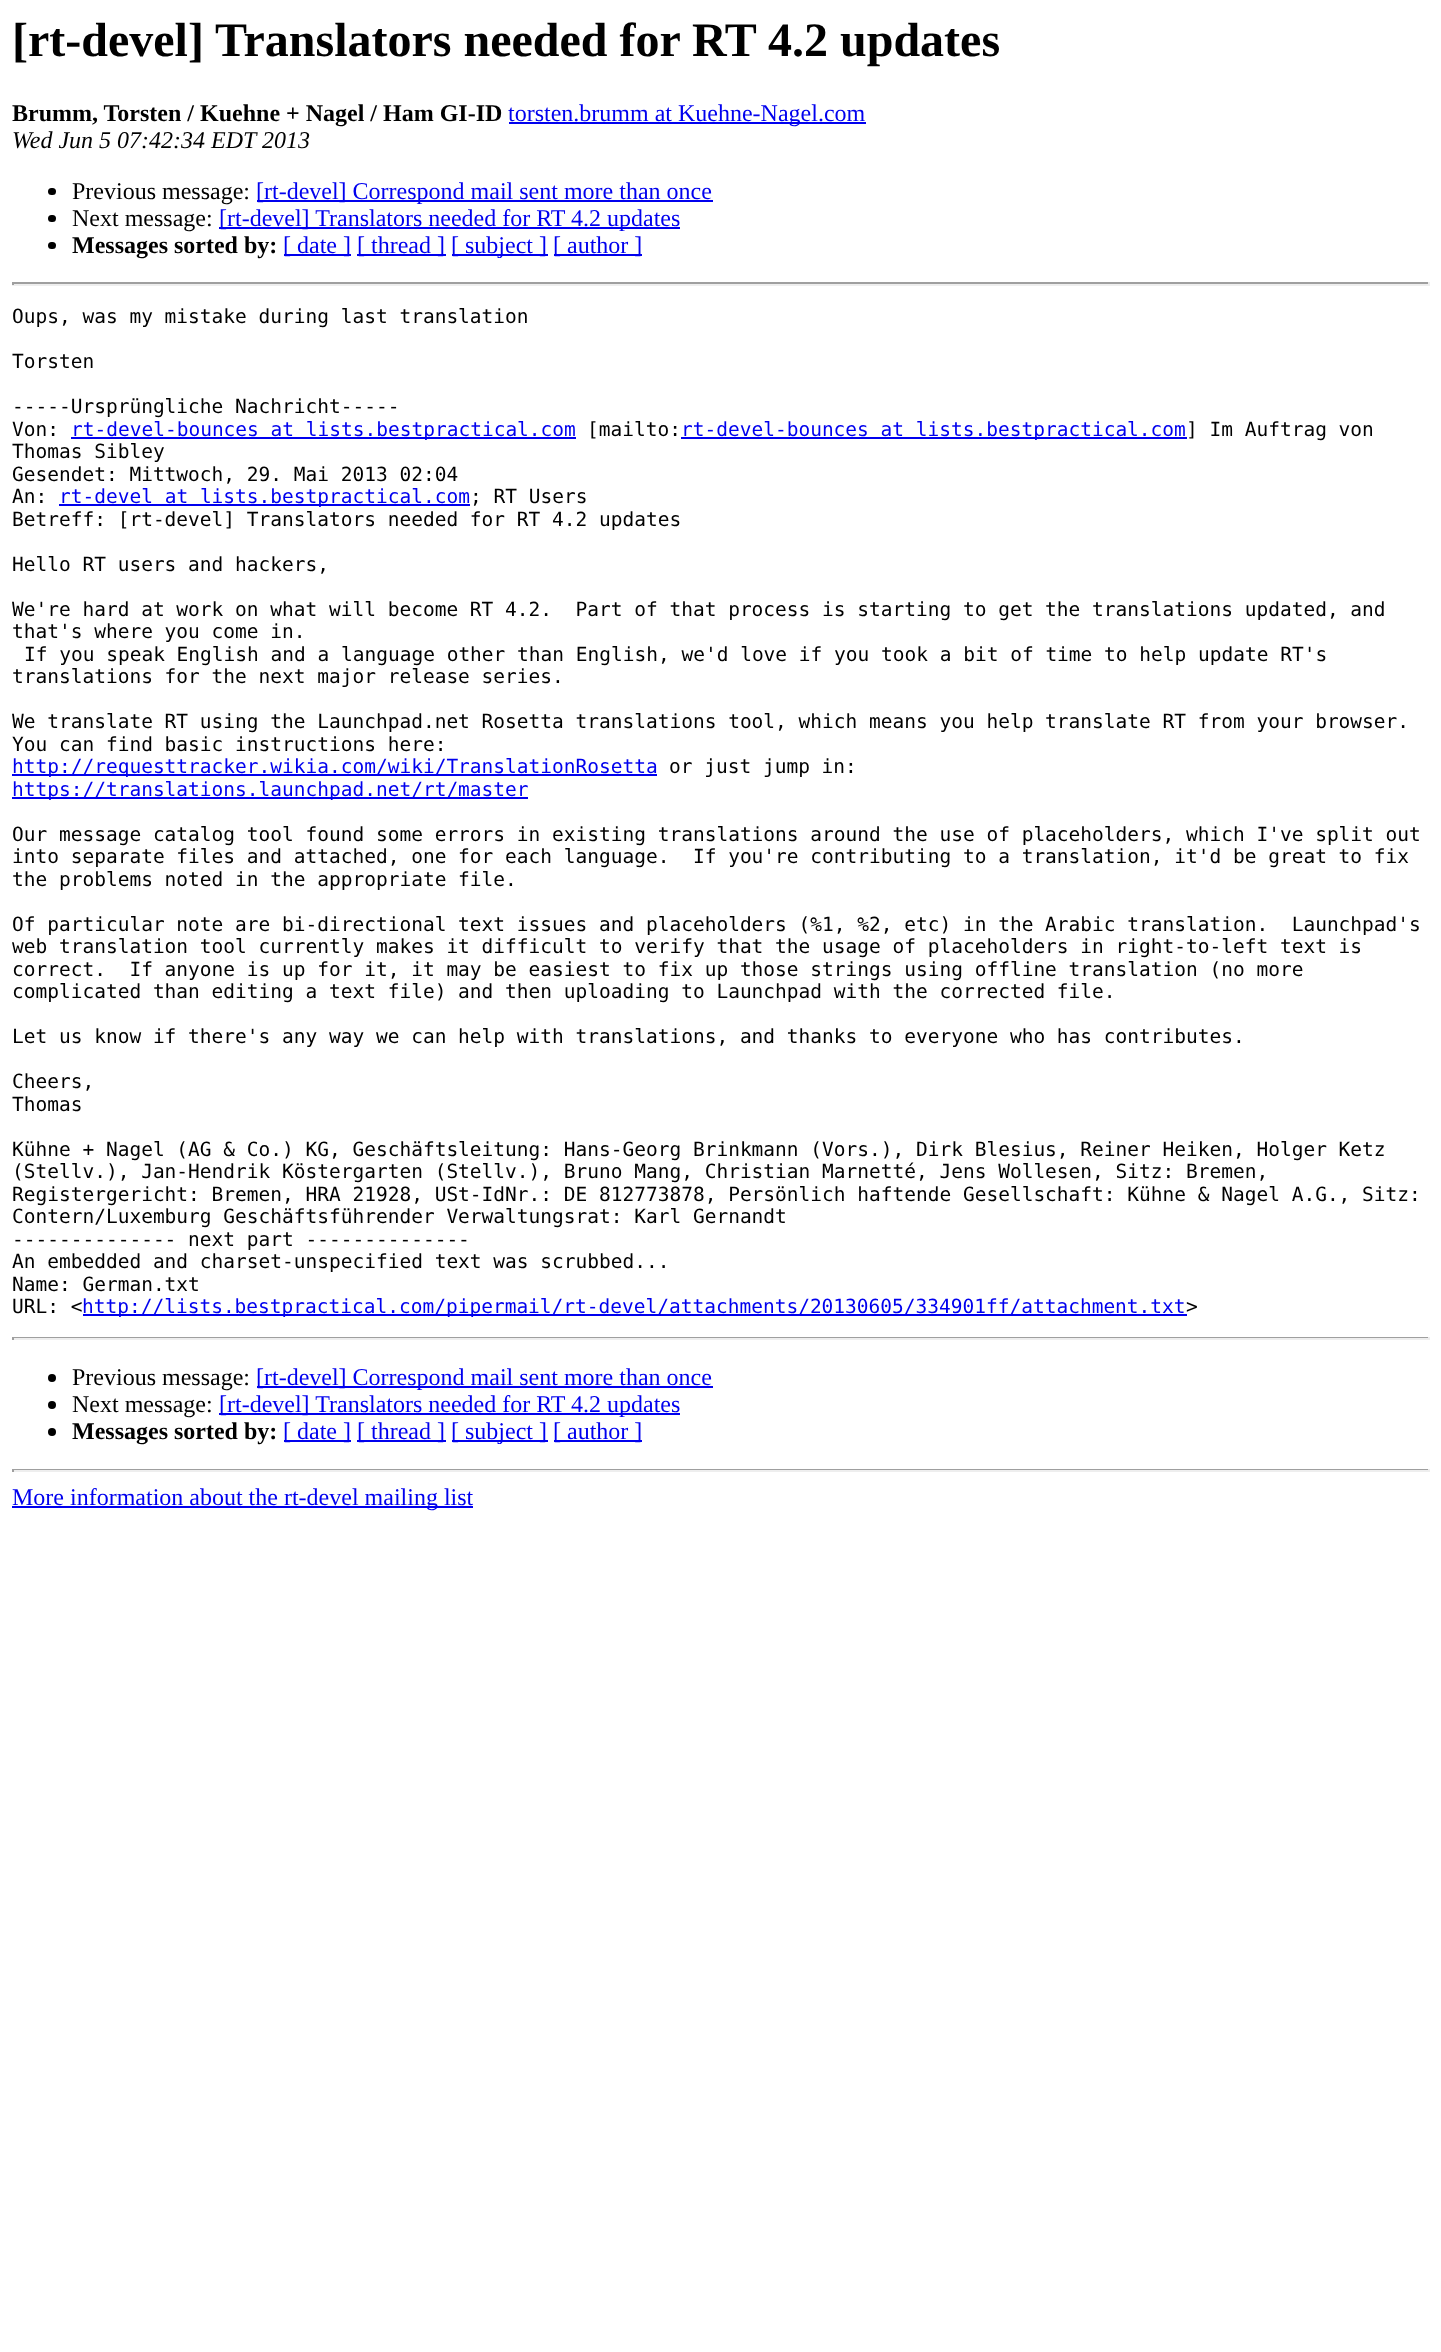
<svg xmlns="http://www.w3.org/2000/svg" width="1441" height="2352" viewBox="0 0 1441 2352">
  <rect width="100%" height="100%" fill="rgb(255,255,255)"/>
  <text x="12" y="56" font-family="Liberation Serif" font-size="48" font-weight="bold" fill="rgb(0,0,0)">[rt-devel] Translators needed for RT 4.2 updates</text>
  <text x="12" y="121" font-family="Liberation Serif" font-size="24" font-weight="bold" fill="rgb(0,0,0)">Brumm, Torsten / Kuehne + Nagel / Ham GI-ID</text>
  <rect x="509" y="122" width="357" height="2" fill="rgb(0,0,238)"/>
  <text x="508" y="121" font-family="Liberation Serif" font-size="24" fill="rgb(0,0,238)">torsten.brumm at Kuehne-Nagel.com</text>
  <text x="12" y="148" font-family="Liberation Serif" font-size="24" font-style="italic" fill="rgb(0,0,0)">Wed Jun 5 07:42:34 EDT 2013</text>
  <rect x="48" y="188" width="8" height="7" rx="3.5" fill="rgb(0,0,0)"/>
  <text x="72" y="199" font-family="Liberation Serif" font-size="24" fill="rgb(0,0,0)">Previous message:</text>
  <rect x="257" y="200" width="456" height="2" fill="rgb(0,0,238)"/>
  <text x="256" y="199" font-family="Liberation Serif" font-size="24" fill="rgb(0,0,238)">[rt-devel] Correspond mail sent more than once</text>
  <rect x="48" y="215" width="8" height="7" rx="3.5" fill="rgb(0,0,0)"/>
  <text x="72" y="226" font-family="Liberation Serif" font-size="24" fill="rgb(0,0,0)">Next message:</text>
  <rect x="219" y="227" width="461" height="2" fill="rgb(0,0,238)"/>
  <text x="219" y="226" font-family="Liberation Serif" font-size="24" fill="rgb(0,0,238)">[rt-devel] Translators needed for RT 4.2 updates</text>
  <rect x="48" y="242" width="8" height="7" rx="3.5" fill="rgb(0,0,0)"/>
  <text x="72" y="253" font-family="Liberation Serif" font-size="24" font-weight="bold" fill="rgb(0,0,0)">Messages sorted by:</text>
  <rect x="284" y="254" width="67" height="2" fill="rgb(0,0,238)"/>
  <text x="283" y="253" font-family="Liberation Serif" font-size="24" fill="rgb(0,0,238)">[ date ]</text>
  <rect x="357" y="254" width="89" height="2" fill="rgb(0,0,238)"/>
  <text x="357" y="253" font-family="Liberation Serif" font-size="24" fill="rgb(0,0,238)">[ thread ]</text>
  <rect x="452" y="254" width="96" height="2" fill="rgb(0,0,238)"/>
  <text x="451" y="253" font-family="Liberation Serif" font-size="24" fill="rgb(0,0,238)">[ subject ]</text>
  <rect x="554" y="254" width="88" height="2" fill="rgb(0,0,238)"/>
  <text x="553" y="253" font-family="Liberation Serif" font-size="24" fill="rgb(0,0,238)">[ author ]</text>
  <rect x="12" y="282" width="1418" height="2" fill="rgb(159,159,159)"/>
  <rect x="1428" y="282" width="2" height="3" fill="rgb(238,238,238)"/>
  <rect x="12" y="284" width="1418" height="2" fill="rgb(238,238,238)"/>
  <rect x="12" y="282" width="2" height="3" fill="rgb(159,159,159)"/>
  <g font-family="DejaVu Sans Mono" font-size="19.5" fill="rgb(0,0,0)">
    <text x="12" y="323">Oups, was my mistake during last translation</text>
    <text x="12" y="368">Torsten</text>
    <text>
      <tspan x="12" y="413">-----Ursprüngliche Nachricht-----</tspan>
      <tspan x="12" y="436">Von:</tspan>
    </text>
  </g>
  <rect x="71" y="437" width="505" height="2" fill="rgb(0,0,238)"/>
  <text x="71" y="436" font-family="DejaVu Sans Mono" font-size="19.5" fill="rgb(0,0,238)">rt-devel-bounces at lists.bestpractical.com</text>
  <text x="587" y="436" font-family="DejaVu Sans Mono" font-size="19.5" fill="rgb(0,0,0)">[mailto:</text>
  <rect x="681" y="437" width="506" height="2" fill="rgb(0,0,238)"/>
  <text x="681" y="436" font-family="DejaVu Sans Mono" font-size="19.5" fill="rgb(0,0,238)">rt-devel-bounces at lists.bestpractical.com</text>
  <g font-family="DejaVu Sans Mono" font-size="19.5" fill="rgb(0,0,0)">
    <text x="1186" y="436">] Im Auftrag von</text>
    <text>
      <tspan x="12" y="458">Thomas Sibley</tspan>
      <tspan x="12" y="481">Gesendet: Mittwoch, 29. Mai 2013 02:04</tspan>
      <tspan x="12" y="503">An:</tspan>
    </text>
  </g>
  <rect x="59" y="504" width="411" height="2" fill="rgb(0,0,238)"/>
  <text x="59" y="503" font-family="DejaVu Sans Mono" font-size="19.5" fill="rgb(0,0,238)">rt-devel at lists.bestpractical.com</text>
  <g font-family="DejaVu Sans Mono" font-size="19.5" fill="rgb(0,0,0)">
    <text x="470" y="503">; RT Users</text>
    <text x="12" y="526">Betreff: [rt-devel] Translators needed for RT 4.2 updates</text>
    <text x="12" y="571">Hello RT users and hackers,</text>
    <text xml:space="preserve"><tspan x="12" y="616">We're hard at work on what will become RT 4.2.  Part of that process is starting to get the translations updated, and</tspan><tspan x="12" y="638">that's where you come in.</tspan></text>
    <text x="24" y="661">If you speak English and a language other than English, we'd love if you took a bit of time to help update RT's</text>
    <text x="12" y="683">translations for the next major release series.</text>
    <text>
      <tspan x="12" y="728">We translate RT using the Launchpad.net Rosetta translations tool, which means you help translate RT from your browser.</tspan>
      <tspan x="12" y="751">You can find basic instructions here:</tspan>
    </text>
  </g>
  <rect x="12" y="774" width="645" height="2" fill="rgb(0,0,238)"/>
  <text x="12" y="773" font-family="DejaVu Sans Mono" font-size="19.5" fill="rgb(0,0,238)">http://requesttracker.wikia.com/wiki/TranslationRosetta</text>
  <text x="669" y="773" font-family="DejaVu Sans Mono" font-size="19.5" fill="rgb(0,0,0)">or just jump in:</text>
  <rect x="12" y="797" width="516" height="2" fill="rgb(0,0,238)"/>
  <text x="12" y="796" font-family="DejaVu Sans Mono" font-size="19.5" fill="rgb(0,0,238)">https://translations.launchpad.net/rt/master</text>
  <g font-family="DejaVu Sans Mono" font-size="19.5" fill="rgb(0,0,0)">
    <text xml:space="preserve"><tspan x="12" y="841">Our message catalog tool found some errors in existing translations around the use of placeholders, which I've split out</tspan><tspan x="12" y="863">into separate files and attached, one for each language.  If you're contributing to a translation, it'd be great to fix</tspan><tspan x="12" y="886">the problems noted in the appropriate file.</tspan></text>
    <text xml:space="preserve"><tspan x="12" y="931">Of particular note are bi-directional text issues and placeholders (%1, %2, etc) in the Arabic translation.  Launchpad's</tspan><tspan x="12" y="953">web translation tool currently makes it difficult to verify that the usage of placeholders in right-to-left text is</tspan><tspan x="12" y="976">correct.  If anyone is up for it, it may be easiest to fix up those strings using offline translation (no more</tspan><tspan x="12" y="998">complicated than editing a text file) and then uploading to Launchpad with the corrected file.</tspan></text>
    <text x="12" y="1043">Let us know if there's any way we can help with translations, and thanks to everyone who has contributes.</text>
    <text>
      <tspan x="12" y="1088">Cheers,</tspan>
      <tspan x="12" y="1111">Thomas</tspan>
    </text>
    <text>
      <tspan x="12" y="1156">Kühne + Nagel (AG &amp; Co.) KG, Geschäftsleitung: Hans-Georg Brinkmann (Vors.), Dirk Blesius, Reiner Heiken, Holger Ketz</tspan>
      <tspan x="12" y="1178">(Stellv.), Jan-Hendrik Köstergarten (Stellv.), Bruno Mang, Christian Marnetté, Jens Wollesen, Sitz: Bremen,</tspan>
      <tspan x="12" y="1201">Registergericht: Bremen, HRA 21928, USt-IdNr.: DE 812773878, Persönlich haftende Gesellschaft: Kühne &amp; Nagel A.G., Sitz:</tspan>
      <tspan x="12" y="1223">Contern/Luxemburg Geschäftsführender Verwaltungsrat: Karl Gernandt</tspan>
      <tspan x="12" y="1246">-------------- next part --------------</tspan>
      <tspan x="12" y="1268">An embedded and charset-unspecified text was scrubbed...</tspan>
      <tspan x="12" y="1291">Name: German.txt</tspan>
      <tspan x="12" y="1313">URL: &lt;</tspan>
    </text>
  </g>
  <rect x="83" y="1314" width="1104" height="2" fill="rgb(0,0,238)"/>
  <text x="82" y="1313" font-family="DejaVu Sans Mono" font-size="19.5" fill="rgb(0,0,238)">http://lists.bestpractical.com/pipermail/rt-devel/attachments/20130605/334901ff/attachment.txt</text>
  <text x="1186" y="1313" font-family="DejaVu Sans Mono" font-size="19.5" fill="rgb(0,0,0)">&gt;</text>
  <rect x="12" y="1337" width="1418" height="1" fill="rgb(159,159,159)"/>
  <rect x="1428" y="1337" width="2" height="3" fill="rgb(238,238,238)"/>
  <rect x="12" y="1338" width="1418" height="2" fill="rgb(238,238,238)"/>
  <rect x="12" y="1337" width="2" height="3" fill="rgb(159,159,159)"/>
  <circle cx="52" cy="1378" r="4" fill="rgb(0,0,0)"/>
  <text x="72" y="1385" font-family="Liberation Serif" font-size="24" fill="rgb(0,0,0)">Previous message:</text>
  <rect x="257" y="1386" width="456" height="2" fill="rgb(0,0,238)"/>
  <text x="256" y="1385" font-family="Liberation Serif" font-size="24" fill="rgb(0,0,238)">[rt-devel] Correspond mail sent more than once</text>
  <circle cx="52" cy="1405" r="4" fill="rgb(0,0,0)"/>
  <text x="72" y="1412" font-family="Liberation Serif" font-size="24" fill="rgb(0,0,0)">Next message:</text>
  <rect x="219" y="1413" width="461" height="2" fill="rgb(0,0,238)"/>
  <text x="219" y="1412" font-family="Liberation Serif" font-size="24" fill="rgb(0,0,238)">[rt-devel] Translators needed for RT 4.2 updates</text>
  <circle cx="52" cy="1432" r="4" fill="rgb(0,0,0)"/>
  <text x="72" y="1439" font-family="Liberation Serif" font-size="24" font-weight="bold" fill="rgb(0,0,0)">Messages sorted by:</text>
  <rect x="284" y="1440" width="67" height="2" fill="rgb(0,0,238)"/>
  <text x="283" y="1439" font-family="Liberation Serif" font-size="24" fill="rgb(0,0,238)">[ date ]</text>
  <rect x="357" y="1440" width="89" height="2" fill="rgb(0,0,238)"/>
  <text x="357" y="1439" font-family="Liberation Serif" font-size="24" fill="rgb(0,0,238)">[ thread ]</text>
  <rect x="452" y="1440" width="96" height="2" fill="rgb(0,0,238)"/>
  <text x="451" y="1439" font-family="Liberation Serif" font-size="24" fill="rgb(0,0,238)">[ subject ]</text>
  <rect x="554" y="1440" width="88" height="2" fill="rgb(0,0,238)"/>
  <text x="553" y="1439" font-family="Liberation Serif" font-size="24" fill="rgb(0,0,238)">[ author ]</text>
  <rect x="12" y="1469" width="1418" height="1" fill="rgb(159,159,159)"/>
  <rect x="1428" y="1469" width="2" height="3" fill="rgb(238,238,238)"/>
  <rect x="12" y="1470" width="1418" height="2" fill="rgb(238,238,238)"/>
  <rect x="12" y="1469" width="2" height="3" fill="rgb(159,159,159)"/>
  <rect x="12" y="1506" width="461" height="2" fill="rgb(0,0,238)"/>
  <text x="12" y="1505" font-family="Liberation Serif" font-size="24" fill="rgb(0,0,238)">More information about the rt-devel mailing list</text>
</svg>
